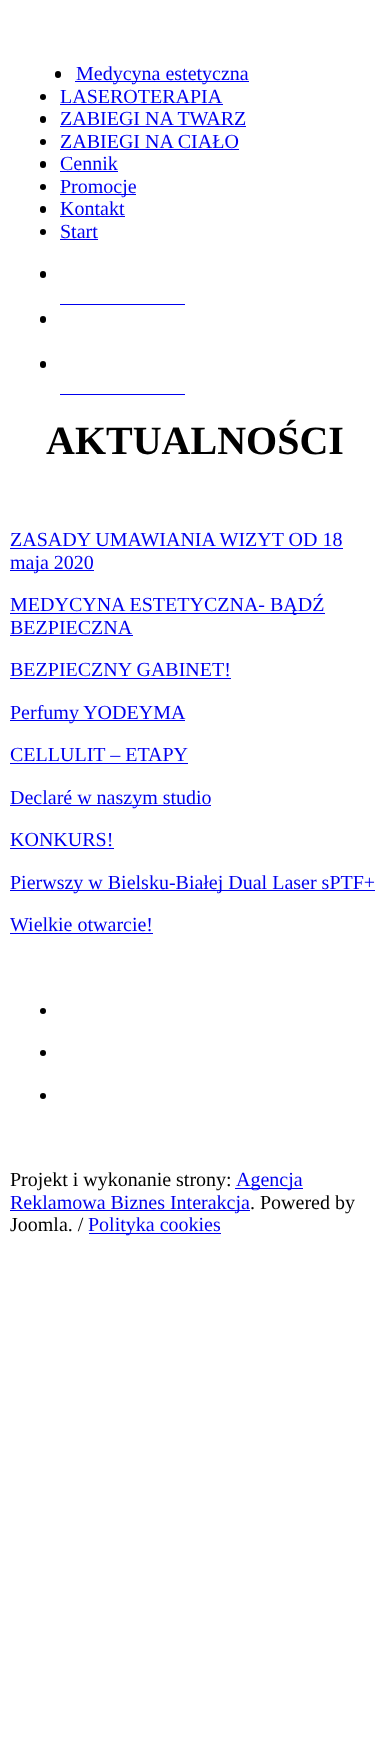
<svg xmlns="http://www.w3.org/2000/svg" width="389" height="1762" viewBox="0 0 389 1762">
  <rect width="100%" height="100%" fill="rgb(255,255,255)"/>
  <rect x="55" y="71" width="6" height="7" rx="3" fill="rgb(0,0,0)"/>
  <rect x="75" y="81" width="174" height="1" fill="rgb(0,0,238)"/>
  <text x="76" y="80" font-family="Liberation Serif" font-size="20" fill="rgb(0,0,238)">Medycyna estetyczna</text>
  <circle cx="43" cy="97" r="3" fill="rgb(0,0,0)"/>
  <text x="60" y="103" font-family="Liberation Serif" font-size="20" fill="rgb(0,0,238)">LASEROTERAPIA</text>
  <rect x="60" y="104" width="163" height="1" fill="rgb(0,0,238)"/>
  <rect x="40" y="116" width="6" height="7" rx="3" fill="rgb(0,0,0)"/>
  <text x="60" y="125" font-family="Liberation Serif" font-size="20" fill="rgb(0,0,238)">ZABIEGI NA TWARZ</text>
  <rect x="60" y="126" width="186" height="1" fill="rgb(0,0,238)"/>
  <circle cx="43" cy="142" r="3" fill="rgb(0,0,0)"/>
  <text x="60" y="148" font-family="Liberation Serif" font-size="20" fill="rgb(0,0,238)">ZABIEGI NA CIAŁO</text>
  <rect x="60" y="149" width="179" height="1" fill="rgb(0,0,238)"/>
  <rect x="40" y="161" width="6" height="7" rx="3" fill="rgb(0,0,0)"/>
  <text x="60" y="170" font-family="Liberation Serif" font-size="20" fill="rgb(0,0,238)">Cennik</text>
  <rect x="60" y="171" width="58" height="1" fill="rgb(0,0,238)"/>
  <circle cx="43" cy="187" r="3" fill="rgb(0,0,0)"/>
  <rect x="60" y="194" width="76" height="1" fill="rgb(0,0,238)"/>
  <text x="60" y="193" font-family="Liberation Serif" font-size="20" fill="rgb(0,0,238)">Promocje</text>
  <rect x="40" y="206" width="6" height="7" rx="3" fill="rgb(0,0,0)"/>
  <text x="60" y="215" font-family="Liberation Serif" font-size="20" fill="rgb(0,0,238)">Kontakt</text>
  <rect x="60" y="216" width="65" height="1" fill="rgb(0,0,238)"/>
  <circle cx="43" cy="232" r="3" fill="rgb(0,0,0)"/>
  <text x="60" y="238" font-family="Liberation Serif" font-size="20" fill="rgb(0,0,238)">Start</text>
  <rect x="60" y="239" width="38" height="1" fill="rgb(0,0,238)"/>
  <rect x="40" y="271" width="6" height="7" rx="3" fill="rgb(0,0,0)"/>
  <rect x="60" y="304" width="125" height="1" fill="rgb(0,0,238)"/>
  <rect x="40" y="316" width="6" height="7" rx="3" fill="rgb(0,0,0)"/>
  <rect x="40" y="361" width="6" height="7" rx="3" fill="rgb(0,0,0)"/>
  <rect x="60" y="394" width="125" height="1" fill="rgb(0,0,238)"/>
  <text x="46" y="454" font-family="Liberation Serif" font-size="40" font-weight="bold" fill="rgb(0,0,0)">AKTUALNOŚCI</text>
  <text x="10" y="546" font-family="Liberation Serif" font-size="20" fill="rgb(0,0,238)">ZASADY UMAWIANIA WIZYT OD 18</text>
  <rect x="10" y="548" width="333" height="1" fill="rgb(0,0,238)"/>
  <rect x="10" y="570" width="84" height="1" fill="rgb(0,0,238)"/>
  <text x="10" y="569" font-family="Liberation Serif" font-size="20" fill="rgb(0,0,238)">maja 2020</text>
  <rect x="10" y="613" width="315" height="1" fill="rgb(0,0,238)"/>
  <g font-family="Liberation Serif" font-size="20" fill="rgb(0,0,238)">
    <text>
      <tspan x="10" y="611">MEDYCYNA ESTETYCZNA- BĄDŹ</tspan>
      <tspan x="10" y="634">BEZPIECZNA</tspan>
    </text>
  </g>
  <rect x="10" y="635" width="123" height="1" fill="rgb(0,0,238)"/>
  <text x="10" y="676" font-family="Liberation Serif" font-size="20" fill="rgb(0,0,238)">BEZPIECZNY GABINET!</text>
  <rect x="10" y="678" width="221" height="1" fill="rgb(0,0,238)"/>
  <rect x="10" y="720" width="175" height="1" fill="rgb(0,0,238)"/>
  <g font-family="Liberation Serif" font-size="20" fill="rgb(0,0,238)">
    <text x="10" y="719">Perfumy YODEYMA</text>
    <text x="10" y="761">CELLULIT – ETAPY</text>
  </g>
  <rect x="10" y="763" width="178" height="1" fill="rgb(0,0,238)"/>
  <rect x="10" y="805" width="201" height="1" fill="rgb(0,0,238)"/>
  <g font-family="Liberation Serif" font-size="20" fill="rgb(0,0,238)">
    <text x="10" y="804">Declaré w naszym studio</text>
    <text x="10" y="846">KONKURS!</text>
  </g>
  <rect x="10" y="848" width="104" height="1" fill="rgb(0,0,238)"/>
  <rect x="10" y="890" width="365" height="1" fill="rgb(0,0,238)"/>
  <g font-family="Liberation Serif" font-size="20" fill="rgb(0,0,238)">
    <text x="10" y="889">Pierwszy w Bielsku-Białej Dual Laser sPTF+</text>
    <text x="10" y="931">Wielkie otwarcie!</text>
  </g>
  <rect x="10" y="933" width="143" height="1" fill="rgb(0,0,238)"/>
  <circle cx="43" cy="1011" r="3" fill="rgb(0,0,0)"/>
  <circle cx="43" cy="1053" r="3" fill="rgb(0,0,0)"/>
  <circle cx="43" cy="1096" r="3" fill="rgb(0,0,0)"/>
  <text x="10" y="1186" font-family="Liberation Serif" font-size="20" fill="rgb(0,0,0)">Projekt i wykonanie strony:</text>
  <rect x="235" y="1188" width="68" height="1" fill="rgb(0,0,238)"/>
  <text x="236" y="1186" font-family="Liberation Serif" font-size="20" fill="rgb(0,0,238)">Agencja</text>
  <rect x="10" y="1210" width="240" height="1" fill="rgb(0,0,238)"/>
  <text x="10" y="1209" font-family="Liberation Serif" font-size="20" fill="rgb(0,0,238)">Reklamowa Biznes Interakcja</text>
  <g font-family="Liberation Serif" font-size="20" fill="rgb(0,0,0)">
    <text x="250" y="1209">. Powered by</text>
    <text x="10" y="1231">Joomla. /</text>
  </g>
  <rect x="89" y="1233" width="132" height="1" fill="rgb(0,0,238)"/>
  <text x="88" y="1231" font-family="Liberation Serif" font-size="20" fill="rgb(0,0,238)">Polityka cookies</text>
</svg>
